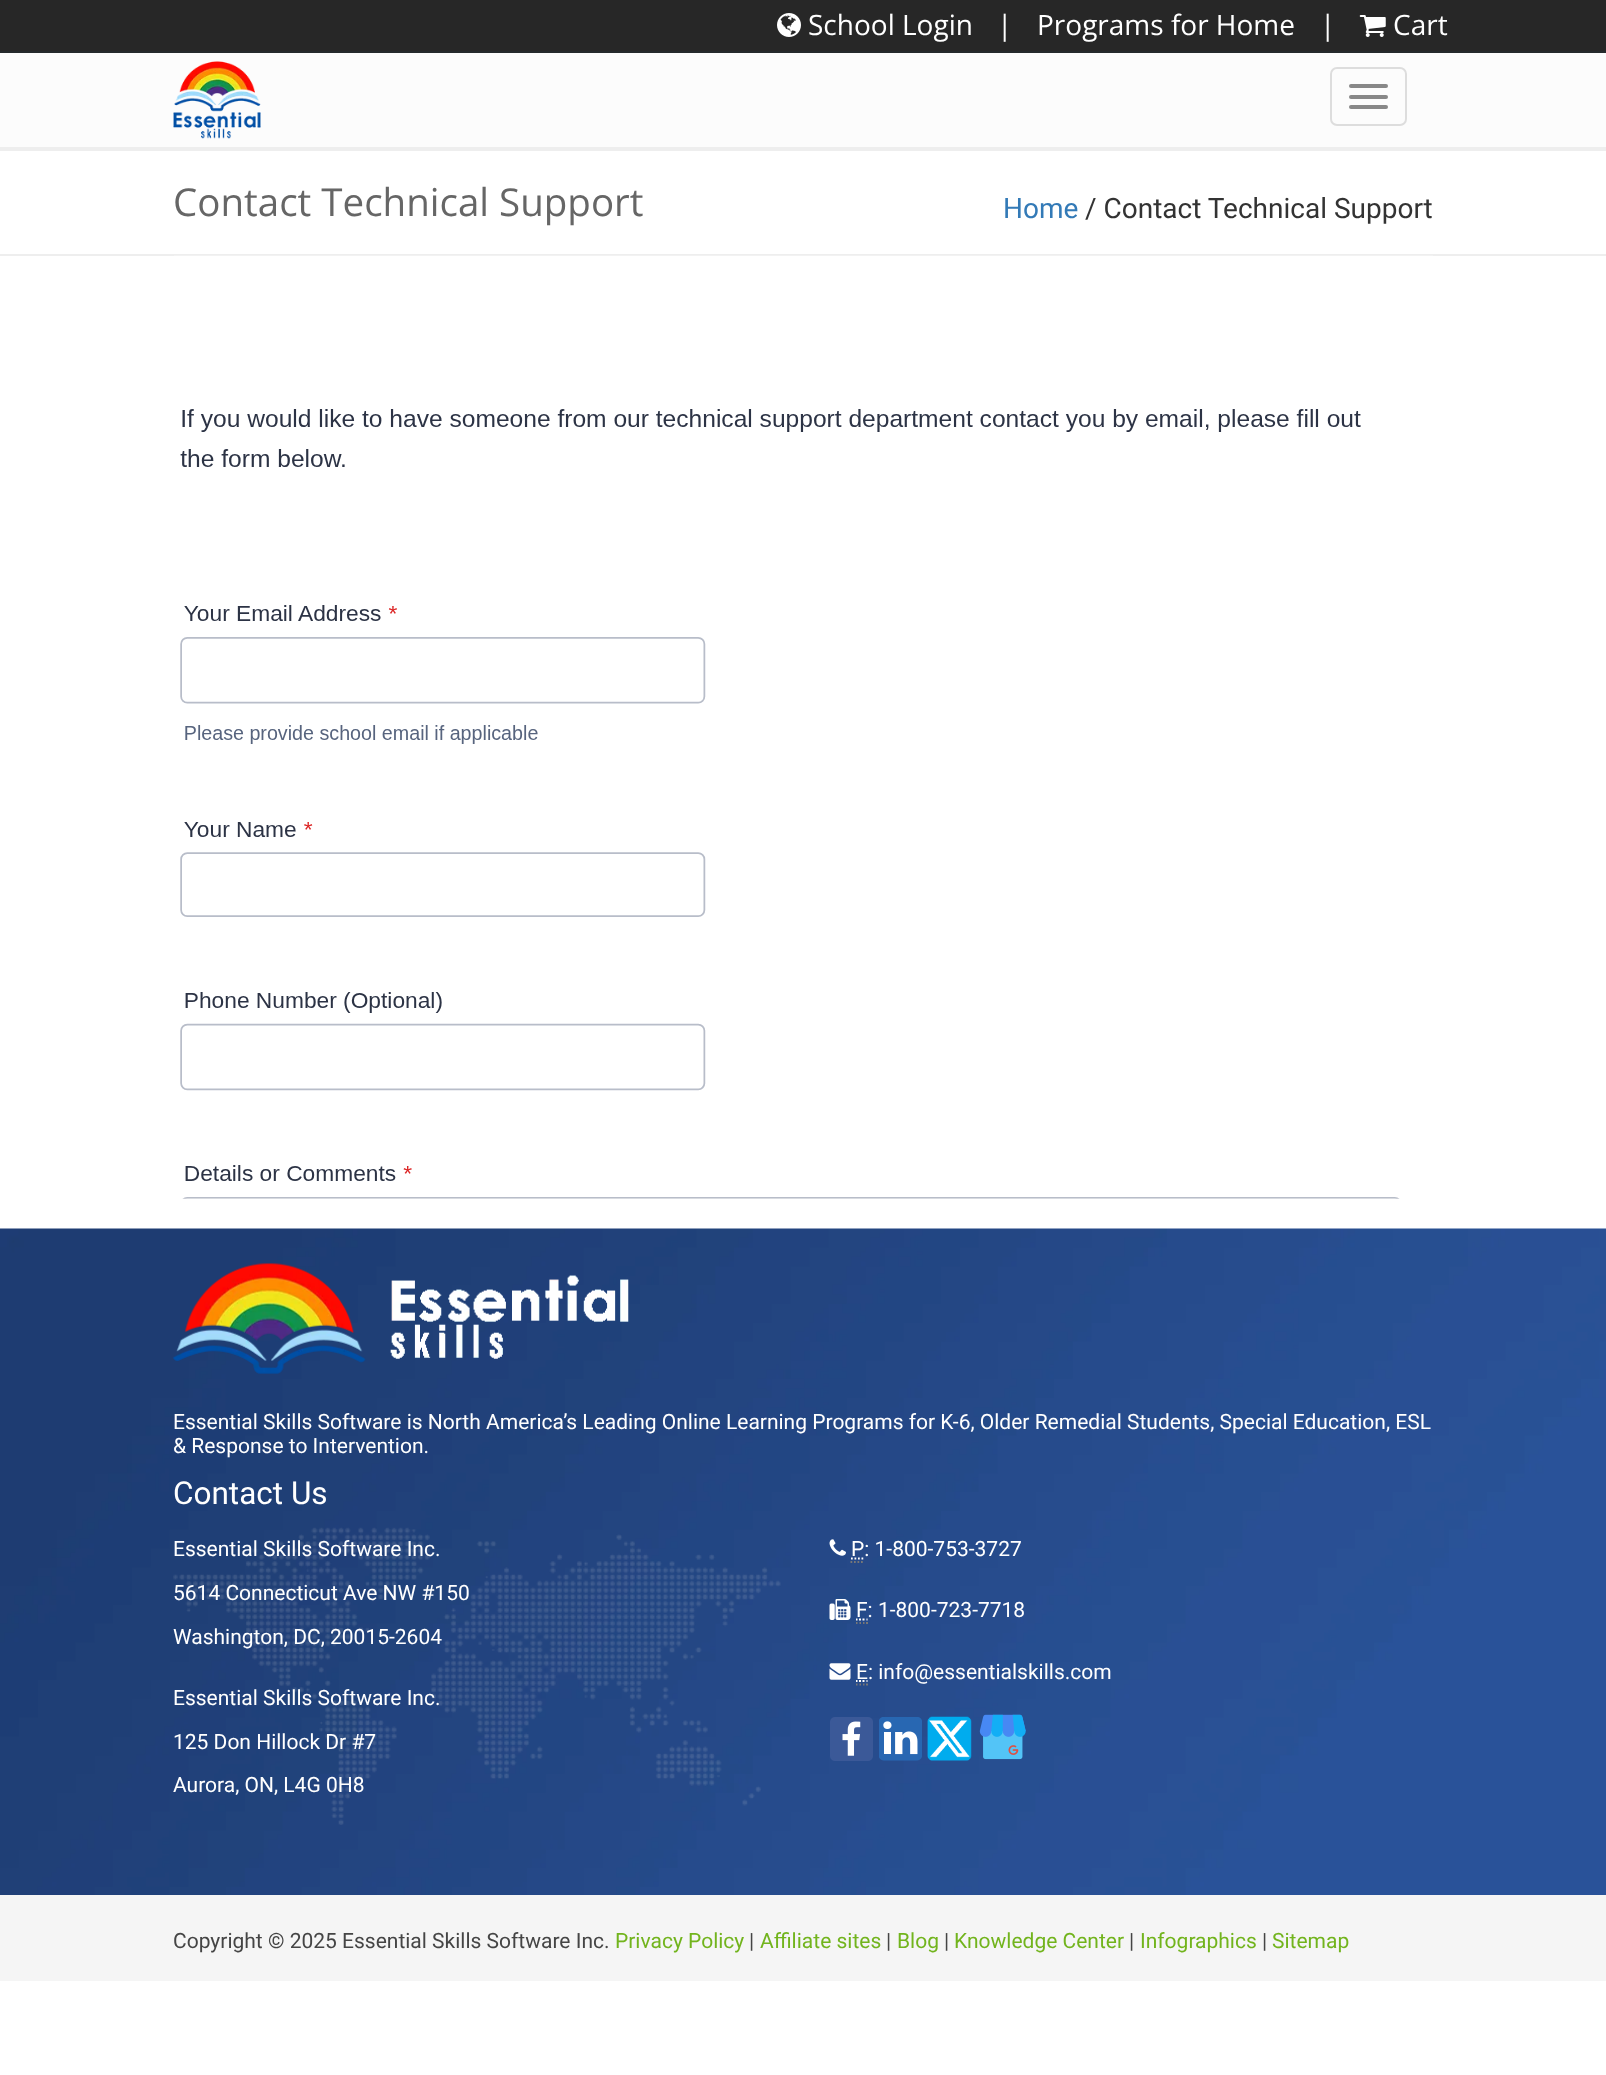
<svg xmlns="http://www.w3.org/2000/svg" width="1606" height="2075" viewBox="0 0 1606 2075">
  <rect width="100%" height="100%" fill="rgb(255,255,255)"/>
  <rect x="0" y="147" width="1606" height="4" fill="rgb(238,238,238)"/>
  <rect x="0" y="0" width="1606" height="51" fill="rgb(39,39,39)"/>
  <rect x="0" y="51" width="1606" height="2" fill="rgb(37,42,44)"/>
  <image x="777" y="13" width="24" height="24" href="pic1.png"/>
  <g font-family="Open Sans" font-size="28" fill="rgb(255,255,255)">
    <text x="808" y="35">School Login</text>
    <text x="997" y="35">|</text>
    <text x="1037" y="35">Programs for Home</text>
    <text x="1320" y="35">|</text>
  </g>
  <image x="1359" y="15" width="27" height="22" href="pic2.png"/>
  <text x="1393" y="35" font-family="Open Sans" font-size="28" fill="rgb(255,255,255)">Cart</text>
  <rect x="0" y="53" width="1606" height="94" fill="rgb(252,252,252)"/>
  <image x="173" y="61" width="88" height="78" href="pic3.png"/>
  <rect x="1331" y="68" width="75" height="57" rx="6" fill="none" stroke="rgb(221,221,221)" stroke-width="2"/>
  <rect x="1349" y="84" width="39" height="4" rx="2" fill="rgb(136,136,136)"/>
  <rect x="1349" y="95" width="39" height="4" rx="2" fill="rgb(136,136,136)"/>
  <rect x="1349" y="105" width="39" height="4" rx="2" fill="rgb(136,136,136)"/>
  <rect x="0" y="254" width="1606" height="2" fill="rgb(238,238,238)"/>
  <text x="173" y="216" font-family="Open Sans" font-size="38.5" fill="rgb(102,102,102)">Contact Technical Support</text>
  <text x="1003" y="218" font-family="Roboto" font-size="28" fill="rgb(51,122,183)">Home</text>
  <text x="1085" y="218" font-family="Roboto" font-size="28" fill="rgb(51,51,51)">/ Contact Technical Support</text>
  <image x="174" y="255" width="1259" height="944" href="pic4.png"/>
  <image x="0" y="1228" width="1606" height="667" href="pic5.png"/>
  <image x="173" y="1263" width="456" height="111" href="pic6.png"/>
  <g font-family="Roboto" font-size="21" fill="rgb(255,255,255)">
    <text>
      <tspan x="173" y="1429">Essential Skills Software is North America’s Leading Online Learning Programs for K-6, Older Remedial Students, Special Education, ESL</tspan>
      <tspan x="173" y="1453">&amp; Response to Intervention.</tspan>
    </text>
  </g>
  <text x="173" y="1504" font-family="Roboto" font-size="31.5" fill="rgb(255,255,255)">Contact Us</text>
  <image x="173" y="1527" width="608" height="298" href="pic7.png"/>
  <g font-family="Roboto" font-size="21" fill="rgb(255,255,255)">
    <text x="173" y="1556">Essential Skills Software Inc.</text>
    <text x="173" y="1600">5614 Connecticut Ave NW #150</text>
    <text x="173" y="1644">Washington, DC, 20015-2604</text>
    <text x="173" y="1705">Essential Skills Software Inc.</text>
    <text x="173" y="1749">125 Don Hillock Dr #7</text>
    <text x="173" y="1792">Aurora, ON, L4G 0H8</text>
  </g>
  <image x="829" y="1539" width="17" height="17" href="pic8.png"/>
  <text x="851" y="1556" font-family="Roboto" font-size="21" fill="rgb(255,255,255)">P: 1-800-753-3727</text>
  <path d="M850.5 1562H864.5" fill="none" stroke="rgb(119,119,119)" stroke-width="1.8" stroke-dasharray="1.75 1.75"/>
  <path d="M851 1558.5H864.5" fill="none" stroke="rgb(255,255,255)" stroke-width="1.8" stroke-dasharray="1.75 1.75"/>
  <image x="829" y="1599" width="22" height="21" href="pic9.png"/>
  <text x="856" y="1617" font-family="Roboto" font-size="21" fill="rgb(255,255,255)">F: 1-800-723-7718</text>
  <path d="M856 1623H857.5M859.5 1623H861M863 1623H864.5M866 1623H868" fill="none" stroke="rgb(119,119,119)" stroke-width="1.8"/>
  <path d="M856 1619.5H857.5M859 1619.5H861M862.5 1619.5H864.5M866.5 1619.5H867.5" fill="none" stroke="rgb(255,255,255)" stroke-width="1.8"/>
  <image x="829" y="1663" width="22" height="17" href="pic10.png"/>
  <path d="M856 1684.5H857.5M859.5 1684.5H861M863 1684.5H864.5M866 1684.5H868" fill="none" stroke="rgb(119,119,119)" stroke-width="1.8"/>
  <path d="M856 1681H857.5M859 1681H861M862.5 1681H864.5M866.5 1681H867.5" fill="none" stroke="rgb(255,255,255)" stroke-width="1.8"/>
  <text x="856" y="1679" font-family="Roboto" font-size="21" fill="rgb(255,255,255)">E: info@essentialskills.com</text>
  <image x="830" y="1717" width="43" height="44" href="pic11.png"/>
  <image x="879" y="1717" width="43" height="44" href="pic12.png"/>
  <image x="927" y="1716" width="45" height="45" href="pic13.png"/>
  <image x="979" y="1714" width="47" height="46" href="pic14.png"/>
  <rect x="0" y="1895" width="1606" height="86" fill="rgb(245,245,245)"/>
  <text x="173" y="1948" font-family="Roboto" font-size="21" fill="rgb(69,69,69)">Copyright © 2025 Essential Skills Software Inc.</text>
  <text x="615" y="1948" font-family="Roboto" font-size="21" fill="rgb(114,180,29)">Privacy Policy</text>
  <text x="749" y="1948" font-family="Roboto" font-size="21" fill="rgb(69,69,69)">|</text>
  <text x="760" y="1948" font-family="Roboto" font-size="21" fill="rgb(114,180,29)">Affiliate sites</text>
  <text x="886" y="1948" font-family="Roboto" font-size="21" fill="rgb(69,69,69)">|</text>
  <text x="897" y="1948" font-family="Roboto" font-size="21" fill="rgb(114,180,29)">Blog</text>
  <text x="944" y="1948" font-family="Roboto" font-size="21" fill="rgb(69,69,69)">|</text>
  <text x="954" y="1948" font-family="Roboto" font-size="21" fill="rgb(114,180,29)">Knowledge Center</text>
  <text x="1129" y="1948" font-family="Roboto" font-size="21" fill="rgb(69,69,69)">|</text>
  <text x="1140" y="1948" font-family="Roboto" font-size="21" fill="rgb(114,180,29)">Infographics</text>
  <text x="1262" y="1948" font-family="Roboto" font-size="21" fill="rgb(69,69,69)">|</text>
  <text x="1272" y="1948" font-family="Roboto" font-size="21" fill="rgb(114,180,29)">Sitemap</text>
</svg>
